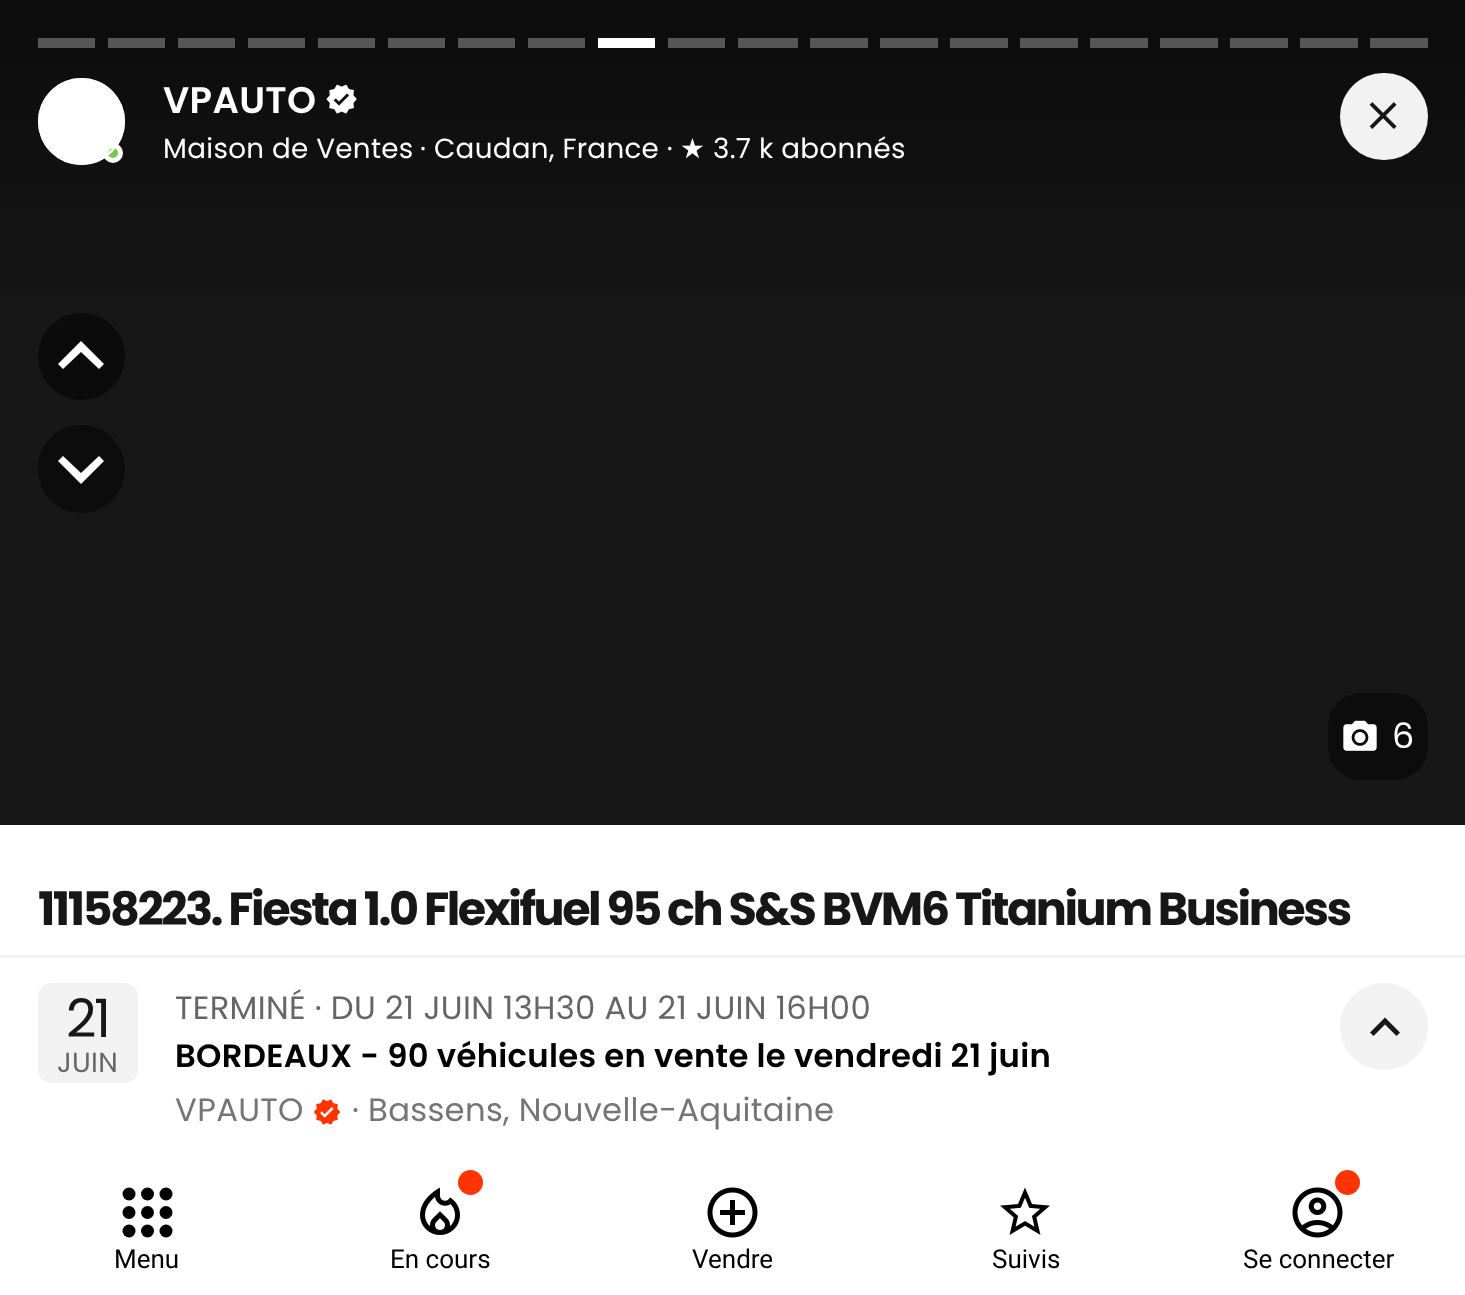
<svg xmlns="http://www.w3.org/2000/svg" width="1465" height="1295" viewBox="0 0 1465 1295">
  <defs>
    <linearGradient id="g1" gradientUnits="userSpaceOnUse" x1="733" y1="375" x2="733" y2="0"><stop offset="0" stop-color="rgb(23,23,23)"/><stop offset="1" stop-color="rgb(12,12,12)"/></linearGradient>
  </defs>
  <rect width="100%" height="100%" fill="rgb(23,23,23)"/>
  <rect x="0" y="0" width="1465" height="290" fill="url(#g1)"/>
  <rect x="38" y="38" width="57" height="10" fill="rgb(86,86,86)"/>
  <rect x="108" y="38" width="57" height="10" fill="rgb(86,86,86)"/>
  <rect x="178" y="38" width="57" height="10" fill="rgb(86,86,86)"/>
  <rect x="248" y="38" width="57" height="10" fill="rgb(86,86,86)"/>
  <rect x="318" y="38" width="57" height="10" fill="rgb(86,86,86)"/>
  <rect x="388" y="38" width="57" height="10" fill="rgb(86,86,86)"/>
  <rect x="458" y="38" width="57" height="10" fill="rgb(86,86,86)"/>
  <rect x="528" y="38" width="57" height="10" fill="rgb(86,86,86)"/>
  <rect x="598" y="38" width="57" height="10" fill="rgb(255,255,255)"/>
  <rect x="668" y="38" width="57" height="10" fill="rgb(86,86,86)"/>
  <rect x="738" y="38" width="60" height="10" fill="rgb(86,86,86)"/>
  <rect x="810" y="38" width="58" height="10" fill="rgb(86,86,86)"/>
  <rect x="880" y="38" width="58" height="10" fill="rgb(86,86,86)"/>
  <rect x="950" y="38" width="58" height="10" fill="rgb(86,86,86)"/>
  <rect x="1020" y="38" width="58" height="10" fill="rgb(86,86,86)"/>
  <rect x="1090" y="38" width="58" height="10" fill="rgb(86,86,86)"/>
  <rect x="1160" y="38" width="58" height="10" fill="rgb(86,86,86)"/>
  <rect x="1230" y="38" width="58" height="10" fill="rgb(86,86,86)"/>
  <rect x="1300" y="38" width="58" height="10" fill="rgb(86,86,86)"/>
  <rect x="1370" y="38" width="58" height="10" fill="rgb(86,86,86)"/>
  <circle cx="81.5" cy="121.5" r="43.5" fill="rgb(255,255,255)"/>
  <circle cx="113" cy="153" r="7.5" fill="rgb(114,201,68)" stroke="rgb(255,255,255)" stroke-width="5"/>
  <circle cx="81.5" cy="121.5" r="42" fill="none" stroke="rgb(255,255,255)" stroke-width="3"/>
  <text x="163" y="113" font-family="Poppins" font-size="37" font-weight="600" letter-spacing="0.3" fill="rgb(255,255,255)">VPAUTO</text>
  <image x="326" y="84" width="31" height="30" href="pic1.png"/>
  <g font-family="Poppins" font-size="27.75" letter-spacing="0.3" fill="rgb(255,255,255)">
    <text x="163" y="158">Maison de Ventes</text>
    <text x="420" y="158">· Caudan, France ·</text>
  </g>
  <text x="680" y="158" font-family="DejaVu Sans" font-size="27.75" letter-spacing="0.3" fill="rgb(255,255,255)">★</text>
  <text x="713" y="158" font-family="Poppins" font-size="27.75" letter-spacing="0.3" fill="rgb(255,255,255)">3.7 k abonnés</text>
  <rect x="1340" y="73" width="88" height="87" rx="43.5" fill="rgb(242,242,242)"/>
  <image x="1369" y="102" width="28" height="27" href="pic2.png"/>
  <circle cx="81.5" cy="356.5" r="43.5" fill="rgb(11,11,11)"/>
  <path d="M63 369L81 352L99 369L104 364L81 341L58 364Z" fill="rgb(255,255,255)"/>
  <rect x="38" y="425" width="87" height="88" rx="43.5" fill="rgb(12,12,12)"/>
  <path d="M63 456L81 473L99 456L104 461L81 484L58 461Z" fill="rgb(255,255,255)"/>
  <rect x="1328" y="693" width="100" height="87" rx="33" fill="rgb(12,12,12)"/>
  <image x="1343" y="720" width="34" height="31" href="pic3.png"/>
  <text x="1392" y="748" font-family="Poppins" font-size="35" letter-spacing="0.3" fill="rgb(255,255,255)">6</text>
  <rect x="0" y="825" width="1465" height="130" fill="rgb(255,255,255)"/>
  <text x="38" y="925" font-family="Poppins" font-size="46.15" font-weight="bold" letter-spacing="-2.5" fill="rgb(23,23,23)">11158223. Fiesta 1.0 Flexifuel 95 ch S&amp;S BVM6 Titanium Business</text>
  <rect x="0" y="958" width="1465" height="337" fill="rgb(255,255,255)"/>
  <rect x="0" y="955" width="1465" height="3" fill="rgb(242,242,242)"/>
  <rect x="39.5" y="984.5" width="97" height="97" rx="11.5" fill="rgb(242,242,242)" stroke="rgb(242,242,242)" stroke-width="3"/>
  <text x="66" y="1037" font-family="Poppins" font-size="53" letter-spacing="-2.5" fill="rgb(23,23,23)">21</text>
  <text x="57" y="1072" font-family="Poppins" font-size="27.75" letter-spacing="0.3" fill="rgb(102,102,102)">JUIN</text>
  <text x="175" y="1019" font-family="Poppins" font-size="32.3" letter-spacing="0.3" fill="rgb(102,102,102)">TERMINÉ · DU 21 JUIN 13H30 AU 21 JUIN 16H00</text>
  <text x="175" y="1067" word-spacing="-0.1" font-family="Poppins" font-size="32.3" font-weight="600" letter-spacing="0.3" fill="rgb(0,0,0)">BORDEAUX - 90 véhicules en vente le vendredi 21 juin</text>
  <text x="175" y="1121" font-family="Poppins" font-size="32.3" letter-spacing="0.3" fill="rgb(117,117,117)">VPAUTO</text>
  <image x="313" y="1099" width="28" height="26" href="pic4.png"/>
  <text x="352" y="1121" font-family="Poppins" font-size="32.3" letter-spacing="0.3" fill="rgb(117,117,117)">· Bassens, Nouvelle-Aquitaine</text>
  <rect x="1340" y="983" width="88" height="87" rx="43.5" fill="rgb(242,242,242)"/>
  <path d="M1385 1017.5L1370 1032.5L1373.5 1036L1385 1024.5L1396.5 1036L1400 1032.5Z" fill="rgb(23,23,23)"/>
  <circle cx="129" cy="1194" r="6.5" fill="rgb(0,0,0)"/>
  <circle cx="147.5" cy="1194" r="6.5" fill="rgb(0,0,0)"/>
  <circle cx="166" cy="1194" r="6.5" fill="rgb(0,0,0)"/>
  <circle cx="129" cy="1212.5" r="6.5" fill="rgb(0,0,0)"/>
  <circle cx="147.5" cy="1212.5" r="6.5" fill="rgb(0,0,0)"/>
  <circle cx="166" cy="1212.5" r="6.5" fill="rgb(0,0,0)"/>
  <circle cx="129" cy="1231" r="6.5" fill="rgb(0,0,0)"/>
  <circle cx="147.5" cy="1231" r="6.5" fill="rgb(0,0,0)"/>
  <circle cx="166" cy="1231" r="6.5" fill="rgb(0,0,0)"/>
  <text x="114" y="1268" font-family="Roboto" font-size="26" fill="rgb(0,0,0)">Menu</text>
  <image x="420" y="1187" width="40" height="48" href="pic5.png"/>
  <circle cx="470.5" cy="1182.5" r="12.5" fill="rgb(255,52,1)"/>
  <text x="390" y="1268" font-family="Roboto" font-size="26" fill="rgb(0,0,0)">En cours</text>
  <image x="707" y="1187" width="51" height="51" href="pic6.png"/>
  <text x="692" y="1268" font-family="Roboto" font-size="26" fill="rgb(0,0,0)">Vendre</text>
  <image x="1000" y="1187" width="50" height="48" href="pic7.png"/>
  <text x="992" y="1268" font-family="Roboto" font-size="26" fill="rgb(0,0,0)">Suivis</text>
  <image x="1292" y="1187" width="51" height="51" href="pic8.png"/>
  <circle cx="1347.5" cy="1182.5" r="12.5" fill="rgb(255,52,1)"/>
  <text x="1243" y="1268" font-family="Roboto" font-size="26" fill="rgb(0,0,0)">Se connecter</text>
</svg>
